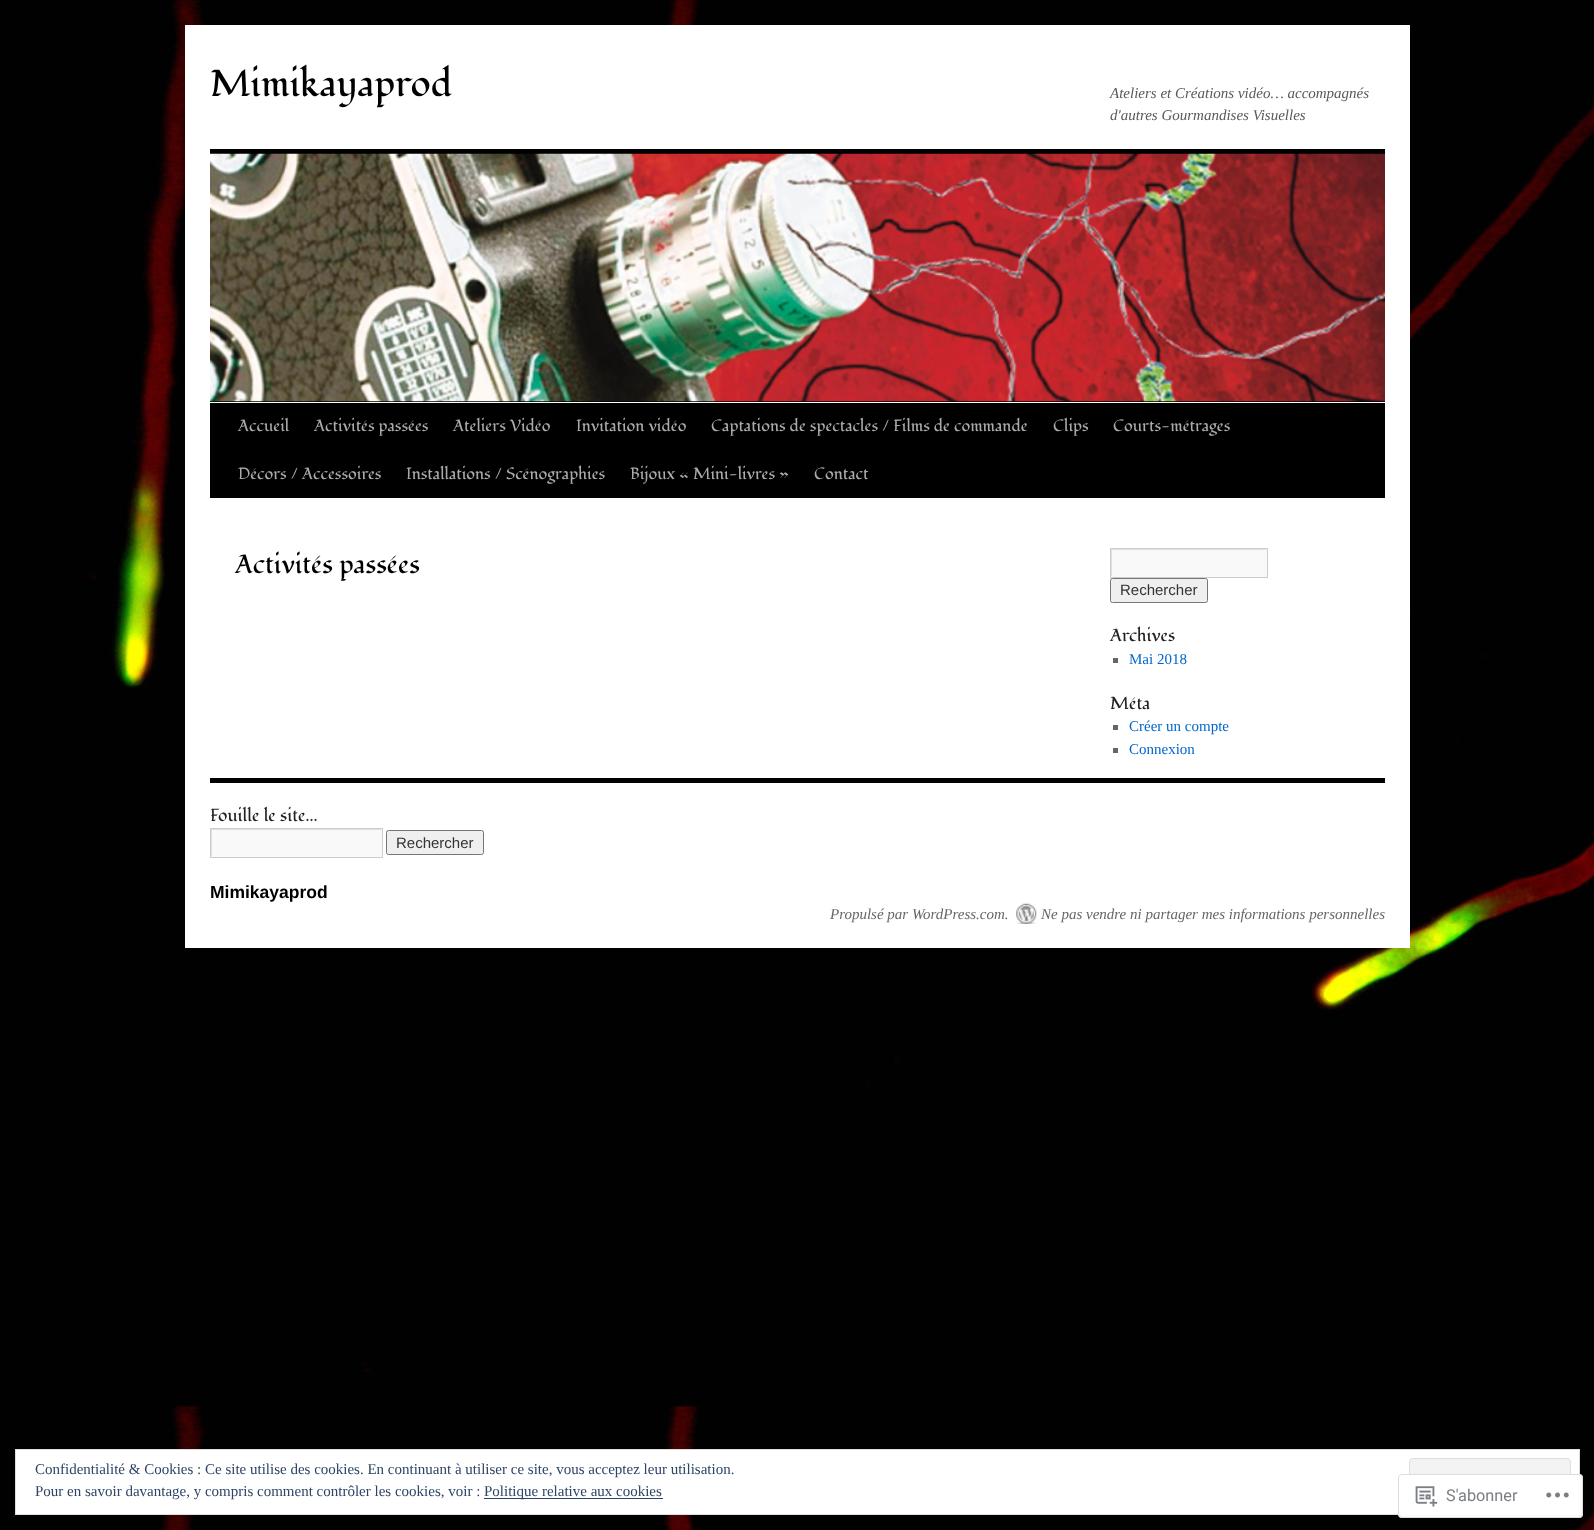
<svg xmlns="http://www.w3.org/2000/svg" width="1594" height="1530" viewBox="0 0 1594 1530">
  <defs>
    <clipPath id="clip1"><rect x="1111" y="549" width="155" height="27"/></clipPath>
    <clipPath id="clip2"><rect x="211" y="829" width="170" height="27"/></clipPath>
  </defs>
  <rect width="100%" height="100%" fill="rgb(255,255,255)"/>
  <image x="0" y="0" width="1594" height="1530" href="pic1.png"/>
  <rect x="185" y="25" width="1225" height="923" fill="rgb(255,255,255)"/>
  <text x="210" y="96" font-family="Fondamento" font-size="37.5" fill="rgb(0,0,0)">Mimikayaprod</text>
  <g font-family="Liberation Serif" font-size="15" font-style="italic" fill="rgb(89,89,89)">
    <text>
      <tspan x="1110" y="98">Ateliers et Créations vidéo… accompagnés</tspan>
      <tspan x="1110" y="120">d'autres Gourmandises Visuelles</tspan>
    </text>
  </g>
  <rect x="210" y="149" width="1175" height="5" fill="rgb(0,0,0)"/>
  <rect x="210" y="401" width="1175" height="1" fill="rgb(0,0,0)"/>
  <image x="210" y="153" width="1175" height="249" href="pic2.png"/>
  <rect x="210" y="403" width="1175" height="95" fill="rgb(0,0,0)"/>
  <g font-family="Fondamento" font-size="16.25" fill="rgb(170,170,170)">
    <text x="238" y="431">Accueil</text>
    <text x="314" y="431">Activités passées</text>
    <text x="453" y="431">Ateliers Vidéo</text>
    <text x="576" y="431">Invitation vidéo</text>
    <text x="711" y="431">Captations de spectacles / Films de commande</text>
    <text x="1053" y="431">Clips</text>
    <text x="1113" y="431">Courts-métrages</text>
    <text x="238" y="479">Décors / Accessoires</text>
    <text x="406" y="479">Installations / Scénographies</text>
    <text x="630" y="479">Bijoux « Mini-livres »</text>
    <text x="814" y="479">Contact</text>
  </g>
  <text x="235" y="573" font-family="Fondamento" font-size="26.25" fill="rgb(0,0,0)">Activités passées</text>
  <rect x="1111" y="549" width="156" height="28" fill="rgb(249,249,249)"/>
  <g clip-path="url(#clip1)">
    <path d="M988 425H1390V700H988ZM1112 550H1268V578H1112Z" fill="rgb(224,224,224)" fill-rule="evenodd"/>
  </g>
  <rect x="1110.5" y="548.5" width="157" height="29" fill="none" stroke="rgb(204,204,204)"/>
  <rect x="1110.5" y="578.5" width="97" height="24" rx="2" fill="rgb(239,239,239)" stroke="rgb(118,118,118)"/>
  <text x="1120" y="595" font-family="Liberation Sans" font-size="15" fill="rgb(51,51,51)">Rechercher</text>
  <text x="1110" y="641" font-family="Fondamento" font-size="17.5" fill="rgb(34,34,34)">Archives</text>
  <rect x="1113" y="658" width="5" height="5" fill="rgb(102,102,102)"/>
  <text x="1129" y="664" font-family="Liberation Serif" font-size="15" fill="rgb(0,102,204)">Mai 2018</text>
  <text x="1110" y="709" font-family="Fondamento" font-size="17.5" fill="rgb(34,34,34)">Méta</text>
  <rect x="1113" y="725" width="5" height="5" fill="rgb(102,102,102)"/>
  <text x="1129" y="731" font-family="Liberation Serif" font-size="15" fill="rgb(0,102,204)">Créer un compte</text>
  <rect x="1113" y="748" width="5" height="5" fill="rgb(102,102,102)"/>
  <text x="1129" y="754" font-family="Liberation Serif" font-size="15" fill="rgb(0,102,204)">Connexion</text>
  <rect x="210" y="778" width="1175" height="5" fill="rgb(0,0,0)"/>
  <text x="210" y="821" font-family="Fondamento" font-size="17.5" fill="rgb(34,34,34)">Fouille le site…</text>
  <rect x="211" y="829" width="171" height="28" fill="rgb(249,249,249)"/>
  <g clip-path="url(#clip2)">
    <path d="M88 705H505V980H88ZM212 830H382V858H212Z" fill="rgb(224,224,224)" fill-rule="evenodd"/>
  </g>
  <rect x="210.5" y="828.5" width="172" height="29" fill="none" stroke="rgb(204,204,204)"/>
  <rect x="386.5" y="830.5" width="97" height="24" rx="2" fill="rgb(239,239,239)" stroke="rgb(118,118,118)"/>
  <text x="396" y="848" font-family="Liberation Sans" font-size="15" fill="rgb(51,51,51)">Rechercher</text>
  <text x="210" y="898" font-family="Liberation Sans" font-size="17.5" font-weight="bold" fill="rgb(0,0,0)">Mimikayaprod</text>
  <text x="830" y="919" font-family="Liberation Serif" font-size="15" font-style="italic" fill="rgb(102,102,102)">Propulsé par WordPress.com.</text>
  <image x="1016" y="903" width="21" height="21" href="pic3.png"/>
  <text x="1041" y="919" font-family="Liberation Serif" font-size="15" font-style="italic" fill="rgb(102,102,102)">Ne pas vendre ni partager mes informations personnelles</text>
  <rect x="15.5" y="1449.5" width="1564" height="65" fill="rgb(255,255,255)" stroke="rgb(222,222,222)"/>
  <text x="35" y="1474" font-family="Liberation Serif" font-size="15" fill="rgb(46,68,103)">Confidentialité &amp; Cookies : Ce site utilise des cookies. En continuant à utiliser ce site, vous acceptez leur utilisation.</text>
  <rect x="1409.5" y="1458.5" width="161" height="47" rx="3.5" fill="rgb(243,243,243)" stroke="rgb(222,222,222)"/>
  <text x="35" y="1496" font-family="Liberation Serif" font-size="15" fill="rgb(46,68,103)">Pour en savoir davantage, y compris comment contrôler les cookies, voir :</text>
  <rect x="484" y="1498" width="179" height="1" fill="rgb(46,68,103)"/>
  <text x="484" y="1496" font-family="Liberation Serif" font-size="15" fill="rgb(46,68,103)">Politique relative aux cookies</text>
  <rect x="1398" y="1474" width="185" height="44" rx="4" fill="rgba(255,255,255,0.98)"/>
  <rect x="1398.5" y="1474.5" width="184" height="43" rx="3.5" fill="none" stroke="rgba(220,220,222,0.98)"/>
  <image x="1415" y="1486" width="23" height="21" href="pic4.png"/>
  <text x="1446" y="1501" font-family="Roboto" font-size="16.25" fill="rgb(122,126,132)">S'abonner</text>
  <image x="1546" y="1492" width="23" height="6" href="pic5.png"/>
</svg>
